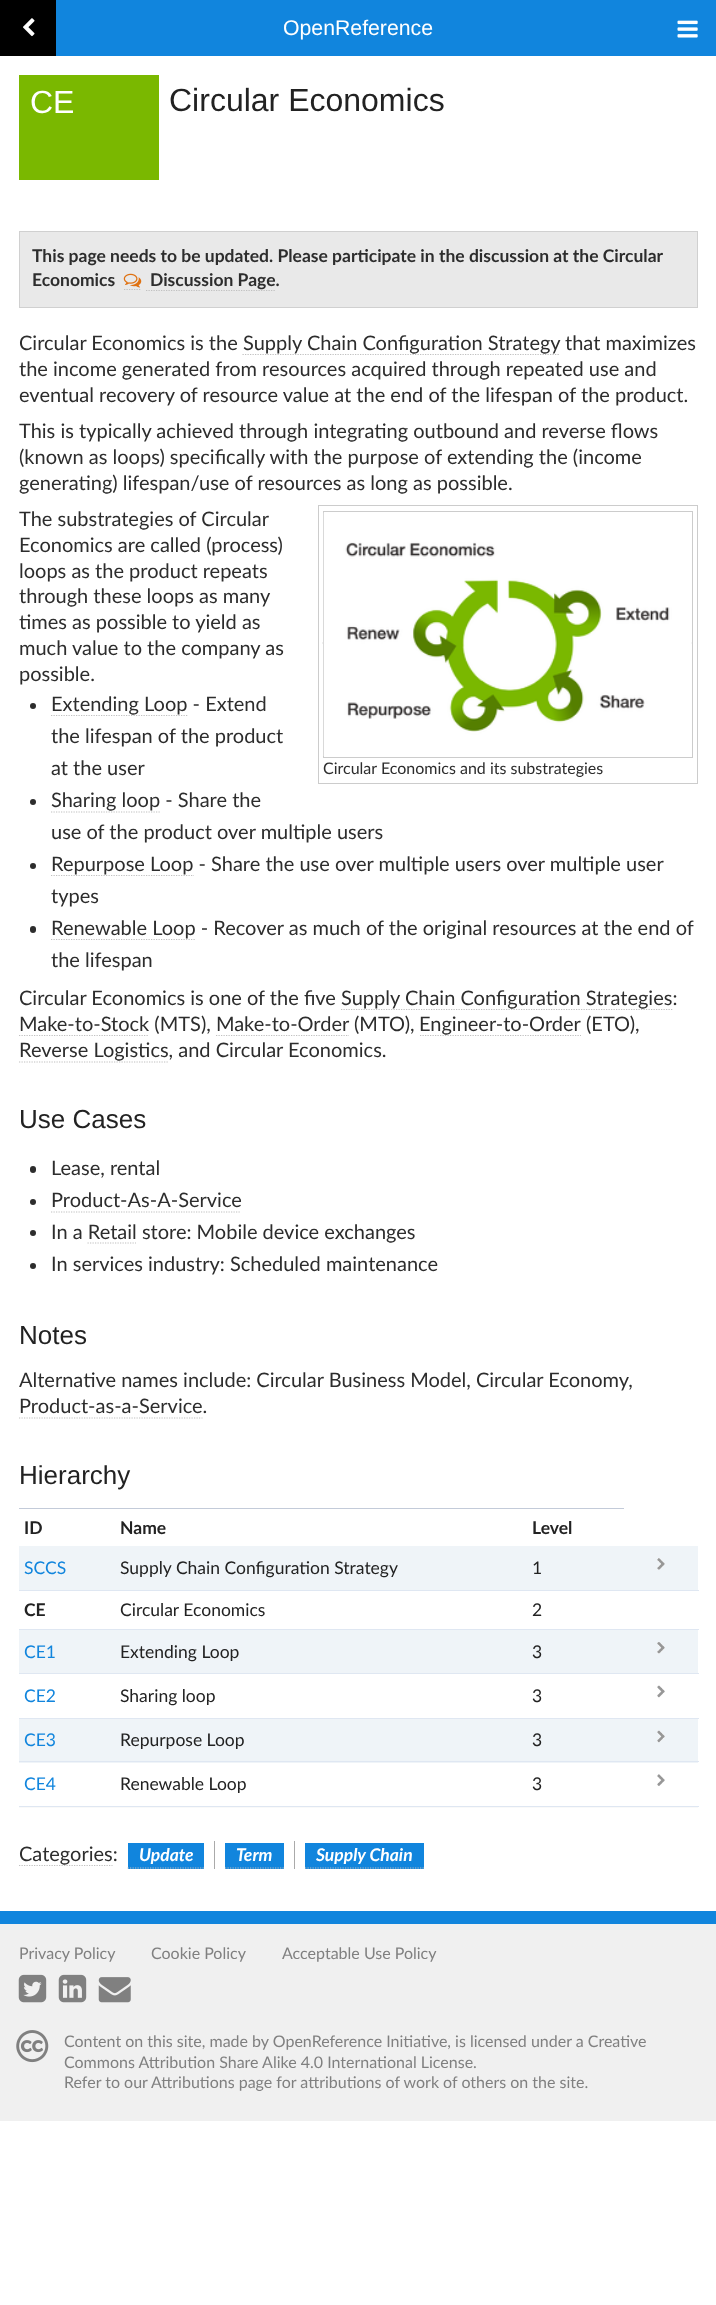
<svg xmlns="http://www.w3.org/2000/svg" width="716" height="2305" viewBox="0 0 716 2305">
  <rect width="100%" height="100%" fill="rgb(255,255,255)"/>
  <rect x="56" y="0" width="660" height="56" fill="rgb(17,133,221)"/>
  <rect x="0" y="0" width="56" height="56" fill="rgb(0,0,0)"/>
  <image x="23" y="18" width="12" height="19" href="pic1.png"/>
  <text x="283" y="35" font-family="Liberation Sans" font-size="21.25" fill="rgb(255,255,255)">OpenReference</text>
  <image x="677" y="20" width="21" height="18" href="pic2.png"/>
  <rect x="19" y="75" width="140" height="105" fill="rgb(122,184,0)"/>
  <text x="30" y="113" font-family="Liberation Sans" font-size="32" fill="rgb(255,255,255)">CE</text>
  <text x="169" y="111" font-family="Liberation Sans" font-size="32" fill="rgb(34,34,34)">Circular Economics</text>
  <rect x="19.5" y="231.5" width="678" height="76" fill="rgb(233,233,233)" stroke="rgb(208,208,208)"/>
  <g font-family="Lato" font-size="17.5" font-weight="bold" fill="rgb(45,45,45)">
    <text>
      <tspan x="32" y="262">This page needs to be updated. Please participate in the discussion at the Circular</tspan>
      <tspan x="32" y="286">Economics</tspan>
    </text>
  </g>
  <path d="M124 289.5H141" fill="none" stroke="rgb(192,192,192)" stroke-width="1.2" stroke-dasharray="1.25 1.25"/>
  <path d="M146 290.5H275" fill="none" stroke="rgb(192,192,192)" stroke-width="1.2" stroke-dasharray="1.25 1.25"/>
  <image x="123" y="273" width="19" height="15" href="pic3.png"/>
  <text x="150" y="286" font-family="Lato" font-size="17.5" font-weight="bold" fill="rgb(45,45,45)">Discussion Page.</text>
  <text x="19" y="350" font-family="Lato" font-size="20" fill="rgb(45,45,45)">Circular Economics is the</text>
  <path d="M242.5 354.5H560" fill="none" stroke="rgb(192,192,192)" stroke-width="1.2" stroke-dasharray="1.25 1.25"/>
  <g font-family="Lato" font-size="20" fill="rgb(45,45,45)">
    <text x="243" y="350">Supply Chain Configuration Strategy</text>
    <text x="565" y="350">that maximizes</text>
    <text>
      <tspan x="19" y="376">the income generated from resources acquired through repeated use and</tspan>
      <tspan x="19" y="402">eventual recovery of resource value at the end of the lifespan of the product.</tspan>
      <tspan x="19" y="438">This is typically achieved through integrating outbound and reverse flows</tspan>
      <tspan x="19" y="464">(known as loops) specifically with the purpose of extending the (income</tspan>
      <tspan x="19" y="490">generating) lifespan/use of resources as long as possible.</tspan>
      <tspan x="19" y="526">The substrategies of Circular</tspan>
      <tspan x="19" y="552">Economics are called (process)</tspan>
      <tspan x="19" y="578">loops as the product repeats</tspan>
      <tspan x="19" y="603">through these loops as many</tspan>
      <tspan x="19" y="629">times as possible to yield as</tspan>
      <tspan x="19" y="655">much value to the company as</tspan>
      <tspan x="19" y="681">possible.</tspan>
    </text>
  </g>
  <circle cx="33" cy="706" r="3" fill="rgb(45,45,45)"/>
  <path d="M51 715.5H187.5" fill="none" stroke="rgb(192,192,192)" stroke-width="1.2" stroke-dasharray="1.25 1.25"/>
  <g font-family="Lato" font-size="20" fill="rgb(45,45,45)">
    <text>
      <tspan x="51" y="711">Extending Loop - Extend</tspan>
      <tspan x="51" y="743">the lifespan of the product</tspan>
      <tspan x="51" y="775">at the user</tspan>
    </text>
  </g>
  <circle cx="33" cy="802" r="3" fill="rgb(45,45,45)"/>
  <text x="51" y="807" font-family="Lato" font-size="20" fill="rgb(45,45,45)">Sharing loop - Share the</text>
  <path d="M51 812H160" fill="none" stroke="rgb(192,192,192)" stroke-width="1.2" stroke-dasharray="1.25 1.25"/>
  <text x="51" y="839" font-family="Lato" font-size="20" fill="rgb(45,45,45)">use of the product over multiple users</text>
  <circle cx="33" cy="866" r="3" fill="rgb(45,45,45)"/>
  <path d="M51 875.5H194" fill="none" stroke="rgb(192,192,192)" stroke-width="1.2" stroke-dasharray="1.25 1.25"/>
  <g font-family="Lato" font-size="20" fill="rgb(45,45,45)">
    <text>
      <tspan x="51" y="871">Repurpose Loop - Share the use over multiple users over multiple user</tspan>
      <tspan x="51" y="903">types</tspan>
    </text>
  </g>
  <rect x="30" y="926" width="6" height="7" rx="3" fill="rgb(45,45,45)"/>
  <path d="M51 939.5H195" fill="none" stroke="rgb(192,192,192)" stroke-width="1.2" stroke-dasharray="1.25 1.25"/>
  <g font-family="Lato" font-size="20" fill="rgb(45,45,45)">
    <text>
      <tspan x="51" y="935">Renewable Loop - Recover as much of the original resources at the end of</tspan>
      <tspan x="51" y="967">the lifespan</tspan>
    </text>
  </g>
  <rect x="318.5" y="505.5" width="379" height="278" fill="none" stroke="rgb(204,204,204)"/>
  <path d="M322.5 643H692.5" fill="none" stroke="rgb(192,192,192)" stroke-width="1.2" stroke-dasharray="1.25 1.25"/>
  <rect x="323.5" y="511.5" width="369" height="246" fill="none" stroke="rgb(204,204,204)"/>
  <image x="323" y="512" width="368" height="244" href="pic4.png"/>
  <text x="323" y="774" font-family="Lato" font-size="16" fill="rgb(45,45,45)">Circular Economics and its substrategies</text>
  <text x="19" y="1005" font-family="Lato" font-size="20" fill="rgb(45,45,45)">Circular Economics is one of the five</text>
  <path d="M341 1009.5H672.5" fill="none" stroke="rgb(192,192,192)" stroke-width="1.2" stroke-dasharray="1.25 1.25"/>
  <g font-family="Lato" font-size="20" fill="rgb(45,45,45)">
    <text x="341" y="1005">Supply Chain Configuration Strategies:</text>
    <text x="19" y="1031">Make-to-Stock (MTS), Make-to-Order</text>
  </g>
  <path d="M19 1035.5H149" fill="none" stroke="rgb(192,192,192)" stroke-width="1.2" stroke-dasharray="1.25 1.25"/>
  <text x="354" y="1031" font-family="Lato" font-size="20" fill="rgb(45,45,45)">(MTO),</text>
  <path d="M420 1035.5H581" fill="none" stroke="rgb(192,192,192)" stroke-width="1.2" stroke-dasharray="1.25 1.25"/>
  <g font-family="Lato" font-size="20" fill="rgb(45,45,45)">
    <text x="419" y="1031">Engineer-to-Order</text>
    <text x="586" y="1031">(ETO),</text>
  </g>
  <path d="M216 1035.5H349" fill="none" stroke="rgb(192,192,192)" stroke-width="1.2" stroke-dasharray="1.25 1.25"/>
  <text x="19" y="1057" font-family="Lato" font-size="20" fill="rgb(45,45,45)">Reverse Logistics, and Circular Economics.</text>
  <path d="M19 1062H169" fill="none" stroke="rgb(192,192,192)" stroke-width="1.2" stroke-dasharray="1.25 1.25"/>
  <text x="19" y="1128" font-family="Liberation Sans" font-size="26" fill="rgb(34,34,34)">Use Cases</text>
  <rect x="30" y="1166" width="6" height="7" rx="3" fill="rgb(45,45,45)"/>
  <text x="51" y="1175" font-family="Lato" font-size="20" fill="rgb(45,45,45)">Lease, rental</text>
  <circle cx="33" cy="1202" r="3" fill="rgb(45,45,45)"/>
  <text x="51" y="1207" font-family="Lato" font-size="20" fill="rgb(45,45,45)">Product-As-A-Service</text>
  <path d="M51 1212H241" fill="none" stroke="rgb(192,192,192)" stroke-width="1.2" stroke-dasharray="1.25 1.25"/>
  <circle cx="33" cy="1233" r="3" fill="rgb(45,45,45)"/>
  <text x="51" y="1239" font-family="Lato" font-size="20" fill="rgb(45,45,45)">In a Retail store: Mobile device exchanges</text>
  <path d="M87.5 1243H136" fill="none" stroke="rgb(192,192,192)" stroke-width="1.2" stroke-dasharray="1.25 1.25"/>
  <circle cx="33" cy="1266" r="3" fill="rgb(45,45,45)"/>
  <text x="51" y="1271" font-family="Lato" font-size="20" fill="rgb(45,45,45)">In services industry: Scheduled maintenance</text>
  <text x="19" y="1344" font-family="Liberation Sans" font-size="26" fill="rgb(34,34,34)">Notes</text>
  <g font-family="Lato" font-size="20" fill="rgb(45,45,45)">
    <text>
      <tspan x="19" y="1387">Alternative names include: Circular Business Model, Circular Economy,</tspan>
      <tspan x="19" y="1413">Product-as-a-Service.</tspan>
    </text>
  </g>
  <path d="M19 1418H202.5" fill="none" stroke="rgb(192,192,192)" stroke-width="1.2" stroke-dasharray="1.25 1.25"/>
  <text x="19" y="1484" font-family="Liberation Sans" font-size="26" fill="rgb(34,34,34)">Hierarchy</text>
  <rect x="19" y="1807" width="679" height="1" fill="rgb(249,249,249)"/>
  <rect x="19" y="1508" width="605" height="1" fill="rgb(195,203,217)"/>
  <g font-family="Lato" font-size="17.5" font-weight="bold" fill="rgb(34,34,34)">
    <text x="24" y="1534">ID</text>
    <text x="120" y="1534">Name</text>
    <text x="532" y="1534">Level</text>
  </g>
  <rect x="19" y="1546" width="679" height="44" fill="rgb(239,244,248)"/>
  <rect x="19" y="1590" width="680" height="1" fill="rgb(223,231,242)"/>
  <text x="24" y="1574" font-family="Lato" font-size="17.5" fill="rgb(17,133,221)">SCCS</text>
  <g font-family="Lato" font-size="17.5" fill="rgb(34,34,34)">
    <text x="120" y="1574">Supply Chain Configuration Strategy</text>
    <text x="532" y="1574">1</text>
  </g>
  <image x="657" y="1558" width="8" height="12" href="pic5.png"/>
  <rect x="19" y="1629" width="680" height="1" fill="rgb(223,231,242)"/>
  <text x="24" y="1616" font-family="Lato" font-size="17.5" font-weight="bold" fill="rgb(34,34,34)">CE</text>
  <g font-family="Lato" font-size="17.5" fill="rgb(34,34,34)">
    <text x="120" y="1616">Circular Economics</text>
    <text x="532" y="1616">2</text>
  </g>
  <rect x="19" y="1630" width="679" height="43" fill="rgb(239,244,248)"/>
  <rect x="19" y="1673" width="680" height="1" fill="rgb(223,231,242)"/>
  <text x="24" y="1658" font-family="Lato" font-size="17.5" fill="rgb(17,133,221)">CE1</text>
  <g font-family="Lato" font-size="17.5" fill="rgb(34,34,34)">
    <text x="120" y="1658">Extending Loop</text>
    <text x="532" y="1658">3</text>
  </g>
  <image x="657" y="1642" width="8" height="12" href="pic6.png"/>
  <rect x="19" y="1718" width="680" height="1" fill="rgb(223,231,242)"/>
  <text x="24" y="1702" font-family="Lato" font-size="17.5" fill="rgb(17,133,221)">CE2</text>
  <g font-family="Lato" font-size="17.5" fill="rgb(34,34,34)">
    <text x="120" y="1702">Sharing loop</text>
    <text x="532" y="1702">3</text>
  </g>
  <image x="657" y="1685" width="8" height="13" href="pic7.png"/>
  <rect x="19" y="1719" width="679" height="44" fill="rgb(239,244,248)"/>
  <rect x="19" y="1761" width="680" height="1" fill="rgb(223,231,242)"/>
  <text x="24" y="1746" font-family="Lato" font-size="17.5" fill="rgb(17,133,221)">CE3</text>
  <g font-family="Lato" font-size="17.5" fill="rgb(34,34,34)">
    <text x="120" y="1746">Repurpose Loop</text>
    <text x="532" y="1746">3</text>
  </g>
  <image x="657" y="1730" width="8" height="13" href="pic8.png"/>
  <rect x="19" y="1806" width="680" height="1" fill="rgb(223,231,242)"/>
  <text x="24" y="1790" font-family="Lato" font-size="17.5" fill="rgb(17,133,221)">CE4</text>
  <g font-family="Lato" font-size="17.5" fill="rgb(34,34,34)">
    <text x="120" y="1790">Renewable Loop</text>
    <text x="532" y="1790">3</text>
  </g>
  <image x="657" y="1774" width="8" height="12" href="pic9.png"/>
  <path d="M19 1865.5H112.5" fill="none" stroke="rgb(192,192,192)" stroke-width="1.2" stroke-dasharray="1.25 1.25"/>
  <text x="19" y="1861" font-family="Lato" font-size="20" fill="rgb(45,45,45)">Categories:</text>
  <rect x="128" y="1843" width="76" height="26" fill="rgb(17,133,221)"/>
  <path d="M127.5 1868H204" fill="none" stroke="rgb(192,192,192)" stroke-width="1.2" stroke-dasharray="1.25 1.25"/>
  <text x="139" y="1861" font-family="Lato" font-size="17.5" font-weight="bold" font-style="italic" fill="rgb(255,255,255)">Update</text>
  <rect x="214" y="1841" width="1" height="28" fill="rgb(170,170,170)"/>
  <rect x="225" y="1843" width="59" height="26" fill="rgb(17,133,221)"/>
  <path d="M225 1868H284" fill="none" stroke="rgb(192,192,192)" stroke-width="1.2" stroke-dasharray="1.25 1.25"/>
  <text x="236" y="1861" font-family="Lato" font-size="17.5" font-weight="bold" font-style="italic" fill="rgb(255,255,255)">Term</text>
  <rect x="294" y="1841" width="1" height="28" fill="rgb(170,170,170)"/>
  <rect x="305" y="1843" width="119" height="26" fill="rgb(17,133,221)"/>
  <path d="M305 1868H424" fill="none" stroke="rgb(192,192,192)" stroke-width="1.2" stroke-dasharray="1.25 1.25"/>
  <text x="316" y="1861" font-family="Lato" font-size="17.5" font-weight="bold" font-style="italic" fill="rgb(255,255,255)">Supply Chain</text>
  <rect x="0" y="1924" width="716" height="197" fill="rgb(240,240,240)"/>
  <rect x="0" y="1911" width="716" height="13" fill="rgb(17,133,221)"/>
  <g font-family="Lato" font-size="16" fill="rgb(128,128,128)">
    <text x="19" y="1959">Privacy Policy</text>
    <text x="151" y="1959">Cookie Policy</text>
    <text x="282" y="1959">Acceptable Use Policy</text>
  </g>
  <image x="18" y="1974" width="29" height="29" href="pic10.png"/>
  <image x="58" y="1974" width="29" height="29" href="pic11.png"/>
  <image x="98" y="1977" width="33" height="26" href="pic12.png"/>
  <image x="16" y="2030" width="33" height="33" href="pic13.png"/>
  <g font-family="Lato" font-size="16" fill="rgb(128,128,128)">
    <text>
      <tspan x="64" y="2047">Content on this site, made by OpenReference Initiative, is licensed under a Creative</tspan>
      <tspan x="64" y="2068">Commons Attribution Share Alike 4.0 International License.</tspan>
      <tspan x="64" y="2088">Refer to our</tspan>
    </text>
    <text x="151" y="2088">Attributions page for attributions of work of others on the site.</text>
  </g>
</svg>
